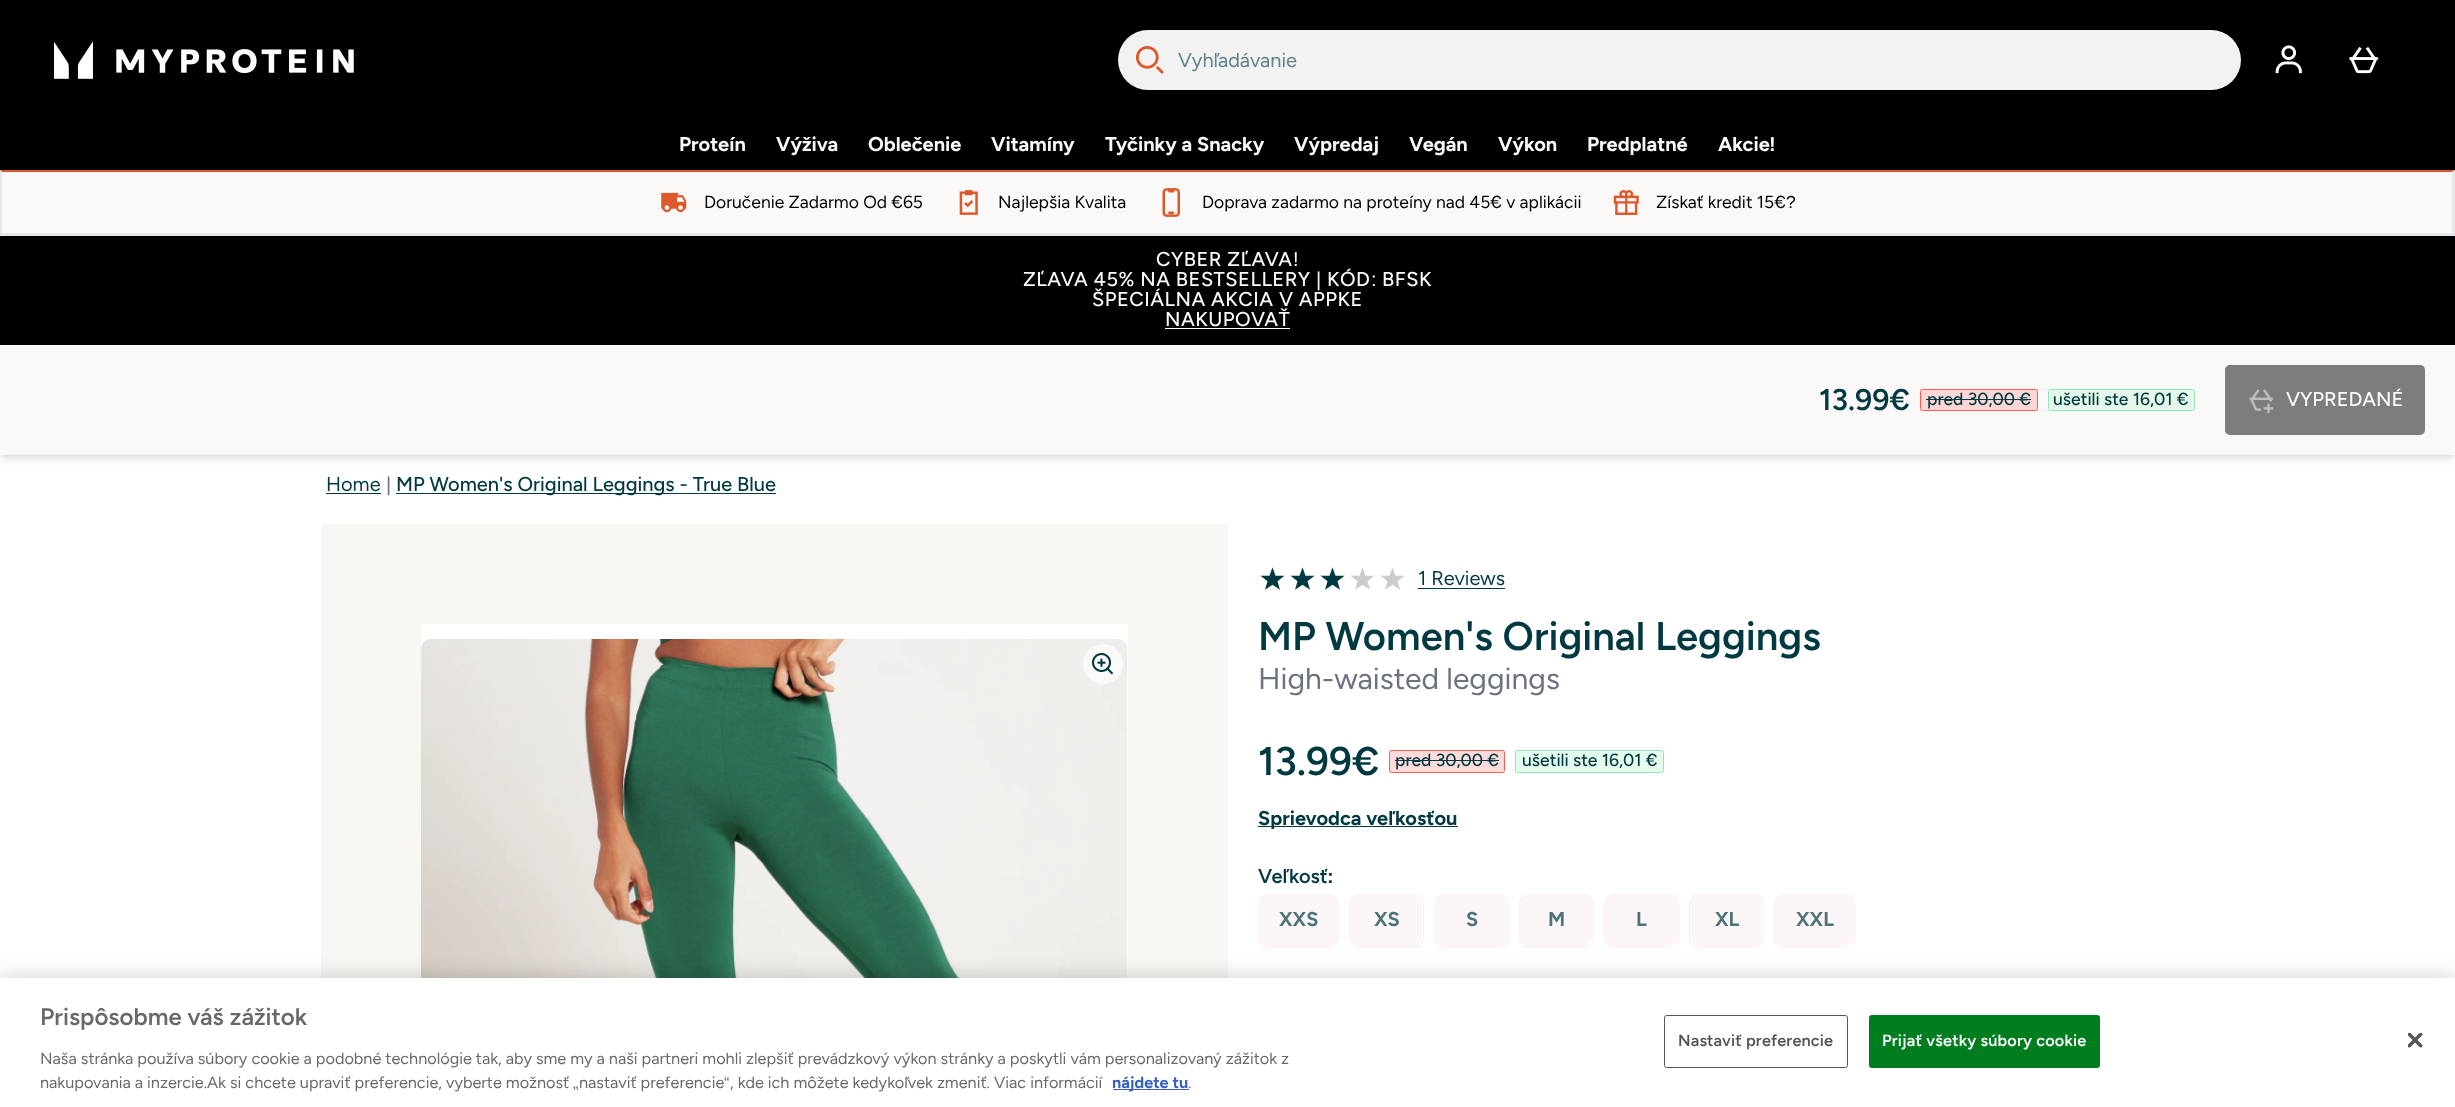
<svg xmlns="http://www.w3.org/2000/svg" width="2455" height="1107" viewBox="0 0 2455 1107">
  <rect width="100%" height="100%" fill="rgb(255,255,255)"/>
  <rect x="0" y="0" width="2455" height="170" fill="rgb(0,0,0)"/>
  <image x="54" y="41" width="300" height="38" href="pic1.png"/>
  <rect x="1118" y="30" width="1123" height="60" rx="30" fill="rgb(242,242,242)"/>
  <image x="1135" y="46" width="29" height="28" href="pic2.png"/>
  <text x="1178" y="67" font-family="Figtree" font-size="20" fill="rgb(97,131,136)">Vyhľadávanie</text>
  <image x="2275" y="45" width="27" height="29" href="pic3.png"/>
  <image x="2349" y="47" width="30" height="27" href="pic4.png"/>
  <g font-family="Figtree" font-size="20" font-weight="bold" fill="rgb(251,249,247)">
    <text x="679" y="151">Proteín</text>
    <text x="776" y="151">Výživa</text>
    <text x="868" y="151">Oblečenie</text>
    <text x="991" y="151">Vitamíny</text>
    <text x="1105" y="151">Tyčinky a Snacky</text>
    <text x="1294" y="151">Výpredaj</text>
    <text x="1409" y="151">Vegán</text>
    <text x="1498" y="151">Výkon</text>
    <text x="1587" y="151">Predplatné</text>
    <text x="1718" y="151">Akcie</text>
  </g>
  <text x="1769" y="151" font-family="Liberation Sans" font-size="20" font-weight="bold" fill="rgb(251,249,247)">!</text>
  <rect x="0" y="170" width="2455" height="63" fill="rgb(251,249,247)"/>
  <path d="M0 170H2455L2452 172H2Z" fill="rgb(221,89,43)"/>
  <path d="M2455 170V235L2452 232V172Z" fill="rgb(229,231,235)"/>
  <rect x="0" y="233" width="2455" height="3" fill="rgb(229,231,235)"/>
  <path d="M0 235V170L2 172V232Z" fill="rgb(229,231,235)"/>
  <image x="661" y="192" width="26" height="21" href="pic5.png"/>
  <text x="704" y="208" font-family="Figtree" font-size="17.5" fill="rgb(0,0,0)">Doručenie Zadarmo Od €65</text>
  <image x="959" y="190" width="19" height="25" href="pic6.png"/>
  <text x="998" y="208" font-family="Figtree" font-size="17.5" fill="rgb(0,0,0)">Najlepšia Kvalita</text>
  <image x="1162" y="188" width="18" height="29" href="pic7.png"/>
  <text x="1202" y="208" font-family="Figtree" font-size="17.5" fill="rgb(0,0,0)">Doprava zadarmo na proteíny nad 45€ v aplikácii</text>
  <image x="1613" y="190" width="26" height="25" href="pic8.png"/>
  <text x="1656" y="208" font-family="Figtree" font-size="17.5" fill="rgb(0,0,0)">Získať kredit 15€</text>
  <text x="1786" y="208" font-family="Liberation Sans" font-size="17.5" fill="rgb(0,0,0)">?</text>
  <rect x="0" y="236" width="2455" height="109" fill="rgb(0,0,0)"/>
  <text x="1156" y="266" font-family="Figtree" font-size="20" font-weight="500" letter-spacing="0.5" fill="rgb(251,249,247)">CYBER ZĽAVA</text>
  <text x="1293" y="266" font-family="Liberation Sans" font-size="20" letter-spacing="0.5" fill="rgb(251,249,247)">!</text>
  <text x="1023" y="286" font-family="Figtree" font-size="20" font-weight="500" letter-spacing="0.5" fill="rgb(251,249,247)">ZĽAVA 45% NA BESTSELLERY</text>
  <text x="1316" y="286" font-family="Liberation Sans" font-size="20" letter-spacing="0.5" fill="rgb(251,249,247)">|</text>
  <text x="1327" y="286" font-family="Figtree" font-size="20" font-weight="500" letter-spacing="0.5" fill="rgb(251,249,247)">KÓD</text>
  <text x="1371" y="286" font-family="Liberation Sans" font-size="20" letter-spacing="0.5" fill="rgb(251,249,247)">:</text>
  <g font-family="Figtree" font-size="20" font-weight="500" letter-spacing="0.5" fill="rgb(251,249,247)">
    <text x="1382" y="286">BFSK</text>
    <text x="1092" y="306">ŠPECIÁLNA AKCIA V APPKE</text>
    <text x="1165" y="326">NAKUPOVAŤ</text>
  </g>
  <rect x="1165" y="328" width="125" height="1" fill="rgb(251,249,247)"/>
  <rect x="3" y="350" width="2450" height="105" fill="rgba(0,0,0,0.1)" filter="blur(2.5px)"/>
  <rect x="1" y="351" width="2453" height="108" fill="rgba(0,0,0,0.1)" filter="blur(4px)"/>
  <rect x="0" y="345" width="2455" height="110" fill="rgb(251,249,247)"/>
  <text x="1819" y="410" font-family="Figtree" font-size="30" font-weight="600" fill="rgb(0,57,66)">13.99€</text>
  <rect x="1920.5" y="389.5" width="117" height="21" rx="2" fill="rgb(253,215,213)" stroke="rgb(255,91,90)"/>
  <text x="1927" y="405" font-family="Figtree" font-size="17.5" font-weight="500" fill="rgb(0,57,66)">pred 30,00 €</text>
  <rect x="1926" y="399" width="105" height="1" fill="rgb(0,57,66)"/>
  <rect x="2048.5" y="389.5" width="146" height="21" rx="2" fill="rgb(227,248,233)" stroke="rgb(148,229,181)"/>
  <text x="2053" y="405" font-family="Figtree" font-size="17.5" font-weight="500" fill="rgb(0,57,66)">ušetili ste 16,01 €</text>
  <rect x="2225" y="365" width="200" height="70" rx="5" fill="rgb(126,125,124)"/>
  <image x="2249" y="389" width="25" height="25" href="pic9.png"/>
  <text x="2286" y="406" font-family="Figtree" font-size="20" font-weight="500" fill="rgb(251,249,247)">VYPREDANÉ</text>
  <text x="326" y="491" font-family="Figtree" font-size="20" fill="rgb(0,57,66)">Home</text>
  <rect x="326" y="493" width="55" height="1" fill="rgb(0,57,66)"/>
  <text x="386" y="491" font-family="Liberation Sans" font-size="20" fill="rgb(107,114,128)">|</text>
  <rect x="396" y="493" width="380" height="1" fill="rgb(0,57,66)"/>
  <text x="396" y="491" font-family="Figtree" font-size="20" font-weight="500" fill="rgb(0,57,66)">MP Women's Original Leggings - True Blue</text>
  <rect x="321" y="524" width="907" height="454" fill="rgb(248,247,244)"/>
  <rect x="421" y="624" width="707" height="354" fill="rgb(255,255,255)"/>
  <image x="421" y="639" width="707" height="339" href="pic10.png"/>
  <circle cx="1103" cy="664" r="20" fill="rgba(255,255,255,0.7)"/>
  <image x="1091" y="652" width="22" height="23" href="pic11.png"/>
  <image x="1260" y="567" width="25" height="23" href="pic12.png"/>
  <image x="1290" y="567" width="25" height="23" href="pic12.png"/>
  <image x="1320" y="567" width="25" height="23" href="pic12.png"/>
  <image x="1350" y="567" width="25" height="23" href="pic13.png"/>
  <image x="1380" y="567" width="25" height="23" href="pic13.png"/>
  <text x="1418" y="585" font-family="Figtree" font-size="20" fill="rgb(0,57,66)">1 Reviews</text>
  <rect x="1418" y="588" width="87" height="1" fill="rgb(0,57,66)"/>
  <text x="1258" y="650" font-family="Figtree" font-size="40" font-weight="600" fill="rgb(0,57,66)">MP Women's Original Leggings</text>
  <text x="1258" y="689" font-family="Figtree" font-size="30" fill="rgb(107,114,128)">High-waisted leggings</text>
  <text x="1258" y="775" font-family="Figtree" font-size="40" font-weight="600" fill="rgb(0,57,66)">13.99€</text>
  <rect x="1389.5" y="750.5" width="115" height="22" rx="2" fill="rgb(255,219,218)" stroke="rgb(255,91,90)"/>
  <text x="1395" y="766" font-family="Figtree" font-size="17.5" font-weight="500" fill="rgb(0,57,66)">pred 30,00 €</text>
  <rect x="1395" y="760" width="104" height="1" fill="rgb(0,57,66)"/>
  <rect x="1515.5" y="750.5" width="148" height="22" rx="2" fill="rgb(229,251,238)" stroke="rgb(148,229,181)"/>
  <text x="1522" y="766" font-family="Figtree" font-size="17.5" font-weight="500" fill="rgb(0,57,66)">ušetili ste 16,01 €</text>
  <rect x="1258" y="826" width="200" height="1" fill="rgb(0,57,66)"/>
  <text x="1258" y="825" font-family="Figtree" font-size="20" font-weight="bold" fill="rgb(0,57,66)">Sprievodca veľkosťou</text>
  <text x="1258" y="883" font-family="Figtree" font-size="20" font-weight="600" fill="rgb(0,57,66)">Veľkosť</text>
  <text x="1327" y="883" font-family="Liberation Sans" font-size="20" font-weight="bold" fill="rgb(0,57,66)">:</text>
  <path d="M1268 895H1329C1334 895 1338 899 1338 904V938C1338 942 1334 945 1329 945H1268C1263 945 1259 942 1259 938V904C1259 899 1263 895 1268 895Z" fill="rgb(253,246,246)"/>
  <rect x="1258.5" y="894.5" width="80" height="53" rx="9.5" fill="none" stroke="rgb(252,239,238)"/>
  <rect x="1263" y="945" width="71" height="1" fill="rgb(252,239,238)"/>
  <text x="1279" y="926" font-family="Figtree" font-size="20" font-weight="bold" fill="rgb(77,116,123)">XXS</text>
  <path d="M1359 895H1414C1419 895 1422 899 1422 904V938C1422 942 1419 945 1414 945H1359C1354 945 1350 942 1350 938V904C1350 899 1354 895 1359 895Z" fill="rgb(253,246,246)"/>
  <rect x="1349.5" y="894.5" width="74" height="53" rx="9.5" fill="none" stroke="rgb(252,239,238)"/>
  <rect x="1354" y="945" width="65" height="1" fill="rgb(252,239,238)"/>
  <text x="1374" y="926" font-family="Figtree" font-size="20" font-weight="bold" fill="rgb(77,116,123)">XS</text>
  <path d="M1444 895H1499C1504 895 1508 899 1508 904V938C1508 942 1504 945 1499 945H1444C1439 945 1435 942 1435 938V904C1435 899 1439 895 1444 895Z" fill="rgb(253,246,246)"/>
  <rect x="1434.5" y="894.5" width="74" height="53" rx="9.5" fill="none" stroke="rgb(252,239,238)"/>
  <rect x="1439" y="945" width="65" height="1" fill="rgb(252,239,238)"/>
  <text x="1466" y="926" font-family="Figtree" font-size="20" font-weight="bold" fill="rgb(77,116,123)">S</text>
  <path d="M1529 895H1584C1589 895 1592 899 1592 904V938C1592 942 1589 945 1584 945H1529C1524 945 1520 942 1520 938V904C1520 899 1524 895 1529 895Z" fill="rgb(253,246,246)"/>
  <rect x="1519.5" y="894.5" width="74" height="53" rx="9.5" fill="none" stroke="rgb(252,239,238)"/>
  <rect x="1524" y="945" width="65" height="1" fill="rgb(252,239,238)"/>
  <text x="1548" y="926" font-family="Figtree" font-size="20" font-weight="bold" fill="rgb(77,116,123)">M</text>
  <path d="M1614 895H1669C1674 895 1678 899 1678 904V938C1678 942 1674 945 1669 945H1614C1609 945 1605 942 1605 938V904C1605 899 1609 895 1614 895Z" fill="rgb(253,246,246)"/>
  <rect x="1604.5" y="894.5" width="74" height="53" rx="9.5" fill="none" stroke="rgb(252,239,238)"/>
  <rect x="1609" y="945" width="65" height="1" fill="rgb(252,239,238)"/>
  <text x="1636" y="926" font-family="Figtree" font-size="20" font-weight="bold" fill="rgb(77,116,123)">L</text>
  <path d="M1699 895H1754C1759 895 1762 899 1762 904V938C1762 942 1759 945 1754 945H1699C1694 945 1690 942 1690 938V904C1690 899 1694 895 1699 895Z" fill="rgb(253,246,246)"/>
  <rect x="1689.5" y="894.5" width="74" height="53" rx="9.5" fill="none" stroke="rgb(252,239,238)"/>
  <rect x="1694" y="945" width="65" height="1" fill="rgb(252,239,238)"/>
  <text x="1715" y="926" font-family="Figtree" font-size="20" font-weight="bold" fill="rgb(77,116,123)">XL</text>
  <path d="M1784 895H1845C1850 895 1854 899 1854 904V938C1854 942 1850 945 1845 945H1784C1779 945 1775 942 1775 938V904C1775 899 1779 895 1784 895Z" fill="rgb(253,246,246)"/>
  <rect x="1774.5" y="894.5" width="80" height="53" rx="9.5" fill="none" stroke="rgb(252,239,238)"/>
  <rect x="1779" y="945" width="71" height="1" fill="rgb(252,239,238)"/>
  <text x="1796" y="926" font-family="Figtree" font-size="20" font-weight="bold" fill="rgb(77,116,123)">XXL</text>
  <rect x="0" y="978" width="2455" height="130" fill="rgba(0,0,0,0.2)" filter="blur(11px)"/>
  <rect x="0" y="978" width="2455" height="129" fill="rgb(255,255,255)"/>
  <text x="40" y="1025" font-family="Figtree" font-size="24" font-weight="600" fill="rgb(105,105,105)">Prispôsobme váš zážitok</text>
  <g font-family="Figtree" font-size="16.25" fill="rgb(105,105,105)">
    <text>
      <tspan x="40" y="1064">Naša stránka používa súbory cookie a podobné technológie tak, aby sme my a naši partneri mohli zlepšiť prevádzkový výkon stránky a poskytli vám personalizovaný zážitok z</tspan>
      <tspan x="40" y="1088">nakupovania a inzercie.Ak si chcete upraviť preferencie, vyberte možnosť</tspan>
    </text>
  </g>
  <text x="573" y="1088" font-family="Liberation Sans" font-size="16.25" fill="rgb(105,105,105)">„</text>
  <text x="579" y="1088" font-family="Figtree" font-size="16.25" fill="rgb(105,105,105)">nastaviť preferencie</text>
  <text x="724" y="1088" font-family="Liberation Sans" font-size="16.25" fill="rgb(105,105,105)">“</text>
  <text x="730" y="1088" font-family="Figtree" font-size="16.25" fill="rgb(105,105,105)">, kde ich môžete kedykoľvek zmeniť. Viac informácií</text>
  <rect x="1113" y="1089" width="76" height="1" fill="rgb(56,96,190)"/>
  <text x="1112" y="1088" font-family="Figtree" font-size="16.25" font-weight="bold" fill="rgb(56,96,190)">nájdete tu</text>
  <text x="1188" y="1088" font-family="Figtree" font-size="16.25" fill="rgb(105,105,105)">.</text>
  <rect x="1664.5" y="1015.5" width="183" height="52" rx="2" fill="none" stroke="rgb(85,85,85)"/>
  <text x="1678" y="1046" font-family="Figtree" font-size="16.25" font-weight="600" letter-spacing="0.15" fill="rgb(85,85,85)">Nastaviť preferencie</text>
  <rect x="1869.5" y="1015.5" width="230" height="52" rx="2" fill="rgb(0,125,30)" stroke="rgb(0,125,30)"/>
  <text x="1882" y="1046" font-family="Figtree" font-size="16.25" font-weight="600" letter-spacing="0.15" fill="rgb(255,255,255)">Prijať všetky súbory cookie</text>
  <image x="2408" y="1033" width="15" height="15" href="pic14.png"/>
</svg>
